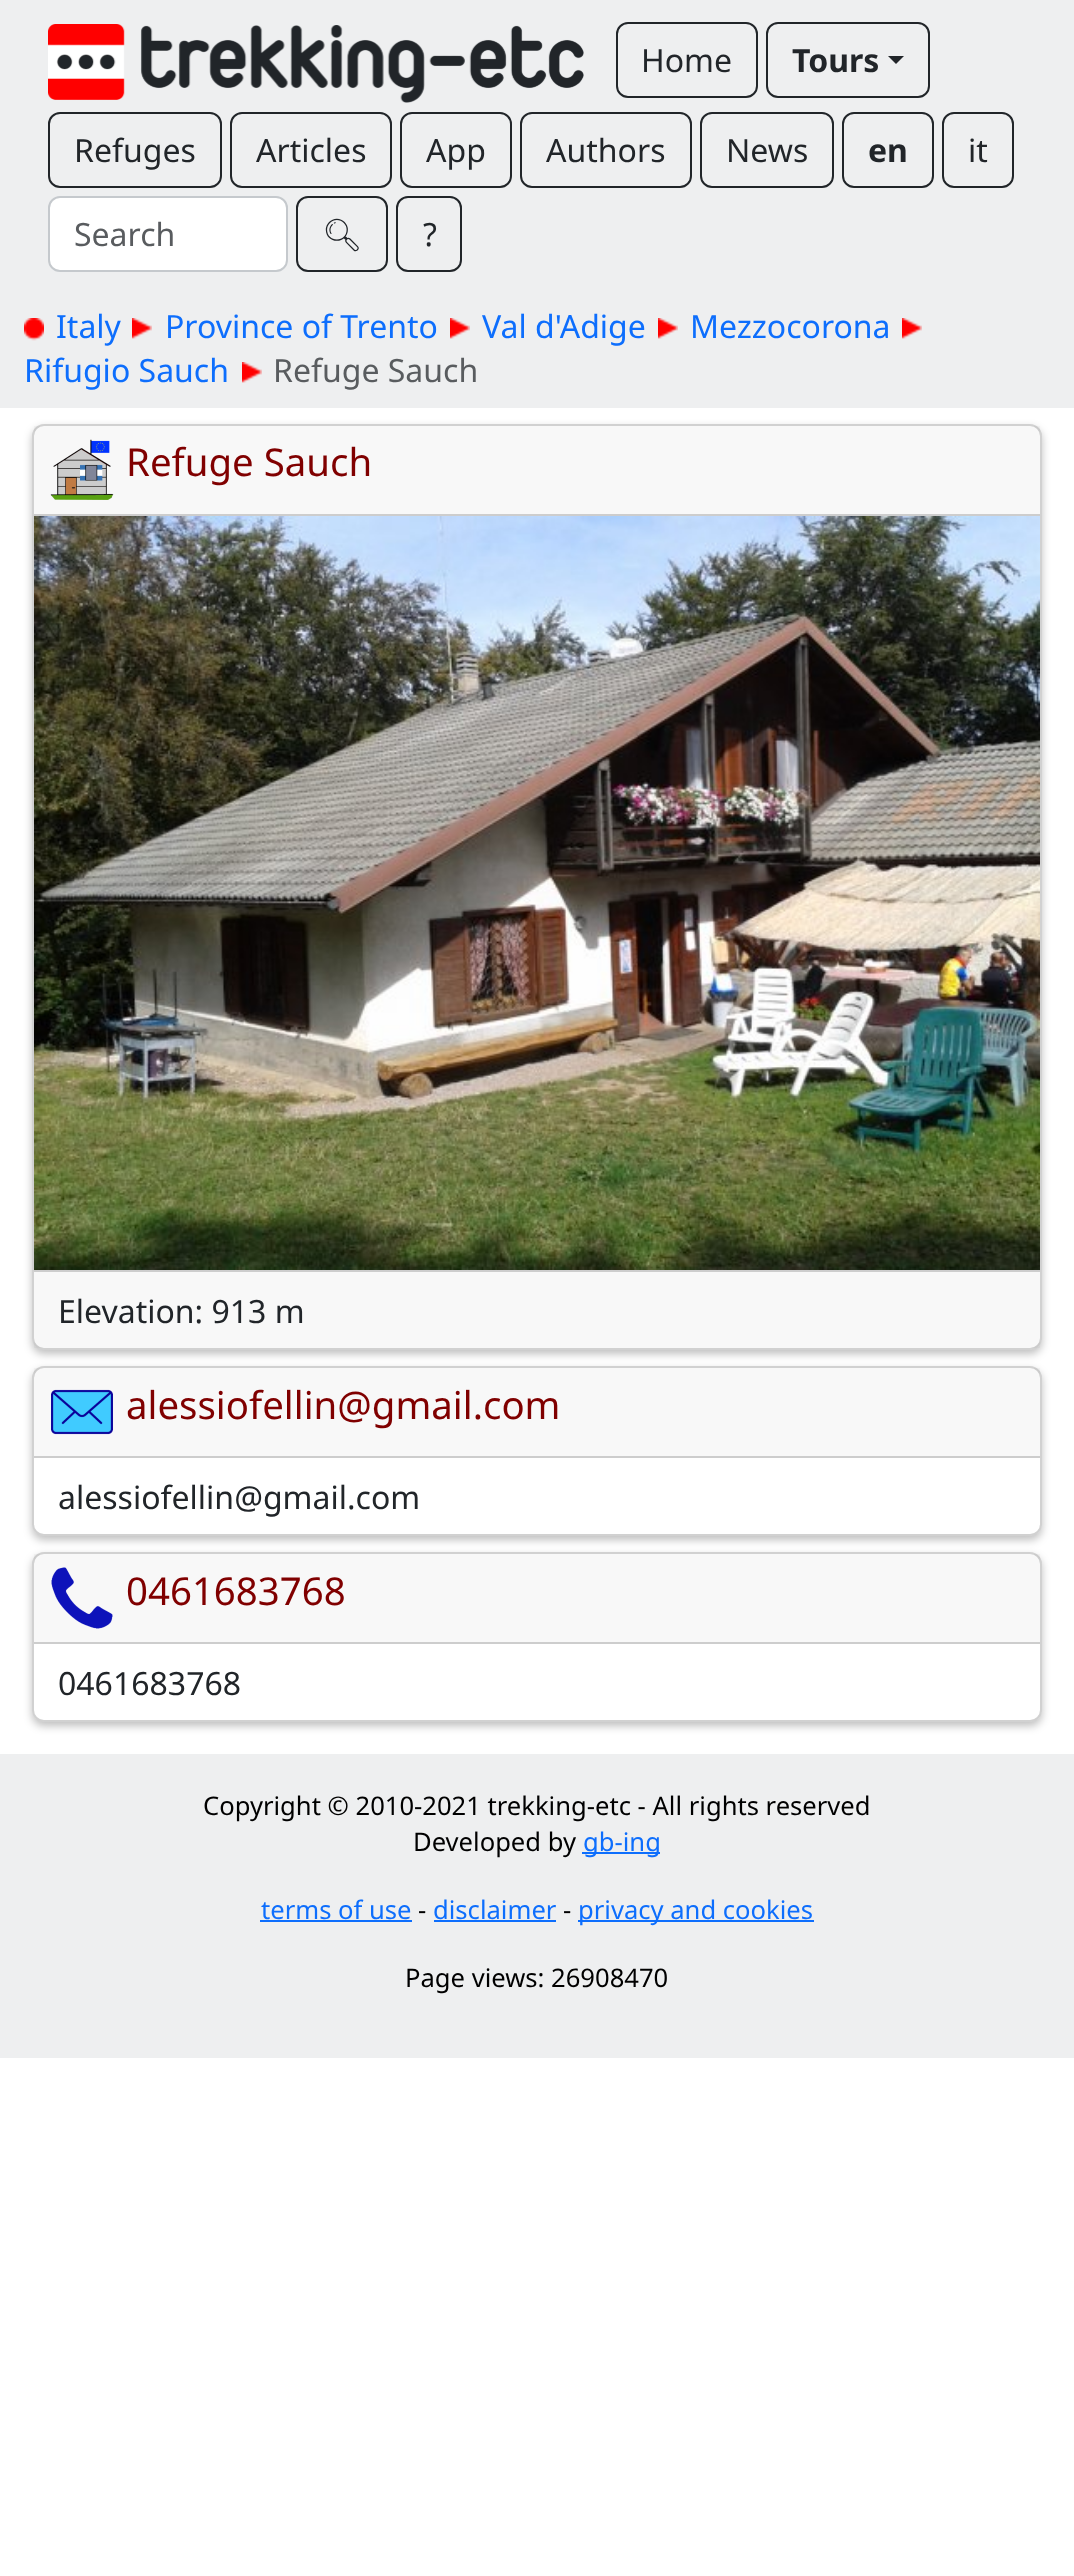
<svg xmlns="http://www.w3.org/2000/svg" width="1074" height="2576" viewBox="0 0 1074 2576">
  <rect width="100%" height="100%" fill="rgb(255,255,255)"/>
  <rect x="0" y="0" width="1074" height="408" fill="rgb(238,239,240)"/>
  <image x="48" y="24" width="536" height="79" href="pic1.png"/>
  <rect x="617" y="23" width="140" height="74" rx="11" fill="none" stroke="rgb(33,37,41)" stroke-width="2"/>
  <text x="641" y="72" font-family="Noto Sans" font-size="32" fill="rgb(33,37,41)">Home</text>
  <rect x="767" y="23" width="162" height="74" rx="11" fill="none" stroke="rgb(33,37,41)" stroke-width="2"/>
  <text x="792" y="72" font-family="Noto Sans" font-size="32" font-weight="bold" fill="rgb(33,37,41)">Tours</text>
  <path d="M888 56H904L896 64Z" fill="rgb(33,37,41)"/>
  <rect x="49" y="113" width="172" height="74" rx="11" fill="none" stroke="rgb(33,37,41)" stroke-width="2"/>
  <text x="74" y="162" font-family="Noto Sans" font-size="32" fill="rgb(33,37,41)">Refuges</text>
  <rect x="231" y="113" width="160" height="74" rx="11" fill="none" stroke="rgb(33,37,41)" stroke-width="2"/>
  <text x="256" y="162" font-family="Noto Sans" font-size="32" fill="rgb(33,37,41)">Articles</text>
  <rect x="401" y="113" width="110" height="74" rx="11" fill="none" stroke="rgb(33,37,41)" stroke-width="2"/>
  <text x="426" y="162" font-family="Noto Sans" font-size="32" fill="rgb(33,37,41)">App</text>
  <rect x="521" y="113" width="170" height="74" rx="11" fill="none" stroke="rgb(33,37,41)" stroke-width="2"/>
  <text x="546" y="162" font-family="Noto Sans" font-size="32" fill="rgb(33,37,41)">Authors</text>
  <rect x="701" y="113" width="132" height="74" rx="11" fill="none" stroke="rgb(33,37,41)" stroke-width="2"/>
  <text x="726" y="162" font-family="Noto Sans" font-size="32" fill="rgb(33,37,41)">News</text>
  <rect x="843" y="113" width="90" height="74" rx="11" fill="none" stroke="rgb(33,37,41)" stroke-width="2"/>
  <text x="868" y="162" font-family="Noto Sans" font-size="32" font-weight="bold" fill="rgb(33,37,41)">en</text>
  <rect x="943" y="113" width="70" height="74" rx="11" fill="none" stroke="rgb(33,37,41)" stroke-width="2"/>
  <text x="968" y="162" font-family="Noto Sans" font-size="32" fill="rgb(33,37,41)">it</text>
  <rect x="49" y="197" width="238" height="74" rx="11" fill="rgb(255,255,255)" stroke="rgb(197,201,205)" stroke-width="2"/>
  <text x="74" y="246" font-family="Noto Sans" font-size="32" fill="rgb(89,92,95)">Search</text>
  <rect x="297" y="197" width="90" height="74" rx="11" fill="none" stroke="rgb(33,37,41)" stroke-width="2"/>
  <text x="322" y="246" font-family="Noto Emoji" font-size="32" fill="rgb(33,37,41)">🔍︎</text>
  <rect x="397" y="197" width="64" height="74" rx="11" fill="none" stroke="rgb(33,37,41)" stroke-width="2"/>
  <text x="423" y="246" font-family="Noto Sans" font-size="32" fill="rgb(33,37,41)">?</text>
  <image x="24" y="318" width="20" height="23" href="pic2.png"/>
  <text x="56" y="338" font-family="Noto Sans" font-size="32" fill="rgb(13,110,253)">Italy</text>
  <image x="132" y="318" width="20" height="21" href="pic3.png"/>
  <text x="165" y="338" font-family="Noto Sans" font-size="32" fill="rgb(13,110,253)">Province of Trento</text>
  <image x="450" y="318" width="20" height="21" href="pic3.png"/>
  <text x="482" y="338" font-family="Noto Sans" font-size="32" fill="rgb(13,110,253)">Val d'Adige</text>
  <image x="658" y="318" width="20" height="21" href="pic3.png"/>
  <text x="690" y="338" font-family="Noto Sans" font-size="32" fill="rgb(13,110,253)">Mezzocorona</text>
  <image x="902" y="318" width="20" height="21" href="pic3.png"/>
  <text x="24" y="382" font-family="Noto Sans" font-size="32" fill="rgb(13,110,253)">Rifugio Sauch</text>
  <image x="242" y="362" width="20" height="21" href="pic3.png"/>
  <text x="273" y="382" font-family="Noto Sans" font-size="32" fill="rgb(89,92,95)">Refuge Sauch</text>
  <rect x="32" y="428" width="1010" height="926" rx="12" fill="rgba(0,0,0,0.25)" filter="blur(4px)"/>
  <rect x="32" y="424" width="1010" height="926" rx="12" fill="rgb(255,255,255)"/>
  <rect x="33" y="425" width="1008" height="924" rx="11" fill="none" stroke="rgba(0,0,0,0.18)" stroke-width="2"/>
  <rect x="34" y="426" width="1006" height="88" fill="rgba(33,37,41,0.03)"/>
  <rect x="34" y="514" width="1006" height="2" fill="rgb(205,205,205)"/>
  <image x="50" y="439" width="64" height="61" href="pic4.png"/>
  <text x="126" y="476" font-family="Noto Sans" font-size="38.4" fill="rgb(128,0,0)">Refuge Sauch</text>
  <image x="34" y="516" width="1006" height="754" href="pic5.png"/>
  <rect x="34" y="1272" width="1006" height="76" fill="rgba(33,37,41,0.03)"/>
  <rect x="34" y="1270" width="1006" height="2" fill="rgb(205,205,205)"/>
  <text x="58" y="1323" font-family="Noto Sans" font-size="32" fill="rgb(33,37,41)">Elevation: 913 m</text>
  <rect x="32" y="1370" width="1010" height="170" rx="12" fill="rgba(0,0,0,0.25)" filter="blur(4px)"/>
  <rect x="32" y="1366" width="1010" height="170" rx="12" fill="rgb(255,255,255)"/>
  <rect x="33" y="1367" width="1008" height="168" rx="11" fill="none" stroke="rgba(0,0,0,0.18)" stroke-width="2"/>
  <rect x="34" y="1368" width="1006" height="88" fill="rgba(33,37,41,0.03)"/>
  <rect x="34" y="1456" width="1006" height="2" fill="rgb(205,205,205)"/>
  <image x="51" y="1389" width="62" height="46" href="pic6.png"/>
  <text x="126" y="1419" font-family="Noto Sans" font-size="38.4" fill="rgb(128,0,0)">alessiofellin@gmail.com</text>
  <text x="58" y="1509" font-family="Noto Sans" font-size="32" fill="rgb(33,37,41)">alessiofellin@gmail.com</text>
  <rect x="32" y="1556" width="1010" height="170" rx="12" fill="rgba(0,0,0,0.25)" filter="blur(4px)"/>
  <rect x="32" y="1552" width="1010" height="170" rx="12" fill="rgb(255,255,255)"/>
  <rect x="33" y="1553" width="1008" height="168" rx="11" fill="none" stroke="rgba(0,0,0,0.18)" stroke-width="2"/>
  <rect x="34" y="1554" width="1006" height="88" fill="rgba(33,37,41,0.03)"/>
  <rect x="34" y="1642" width="1006" height="2" fill="rgb(205,205,205)"/>
  <image x="51" y="1567" width="62" height="62" href="pic7.png"/>
  <text x="126" y="1605" font-family="Noto Sans" font-size="38.4" fill="rgb(128,0,0)">0461683768</text>
  <text x="58" y="1695" font-family="Noto Sans" font-size="32" fill="rgb(33,37,41)">0461683768</text>
  <rect x="0" y="1754" width="1074" height="304" fill="rgb(238,239,240)"/>
  <g font-family="Noto Sans" font-size="25.6" fill="rgb(0,0,0)">
    <text x="203" y="1815">Copyright © 2010-2021 trekking-etc - All rights reserved</text>
    <text x="413" y="1851">Developed by</text>
  </g>
  <rect x="582" y="1852" width="78" height="2" fill="rgb(13,110,253)"/>
  <g font-family="Noto Sans" font-size="25.6" fill="rgb(13,110,253)">
    <text x="583" y="1851">gb-ing</text>
    <text x="261" y="1919">terms of use</text>
  </g>
  <rect x="260" y="1920" width="152" height="2" fill="rgb(13,110,253)"/>
  <text x="418" y="1919" font-family="Noto Sans" font-size="25.6" fill="rgb(0,0,0)">-</text>
  <text x="433" y="1919" font-family="Noto Sans" font-size="25.6" fill="rgb(13,110,253)">disclaimer</text>
  <rect x="434" y="1920" width="122" height="2" fill="rgb(13,110,253)"/>
  <text x="563" y="1919" font-family="Noto Sans" font-size="25.6" fill="rgb(0,0,0)">-</text>
  <rect x="578" y="1920" width="236" height="2" fill="rgb(13,110,253)"/>
  <text x="578" y="1919" font-family="Noto Sans" font-size="25.6" fill="rgb(13,110,253)">privacy and cookies</text>
  <text x="405" y="1987" font-family="Noto Sans" font-size="25.6" fill="rgb(0,0,0)">Page views: 26908470</text>
</svg>
